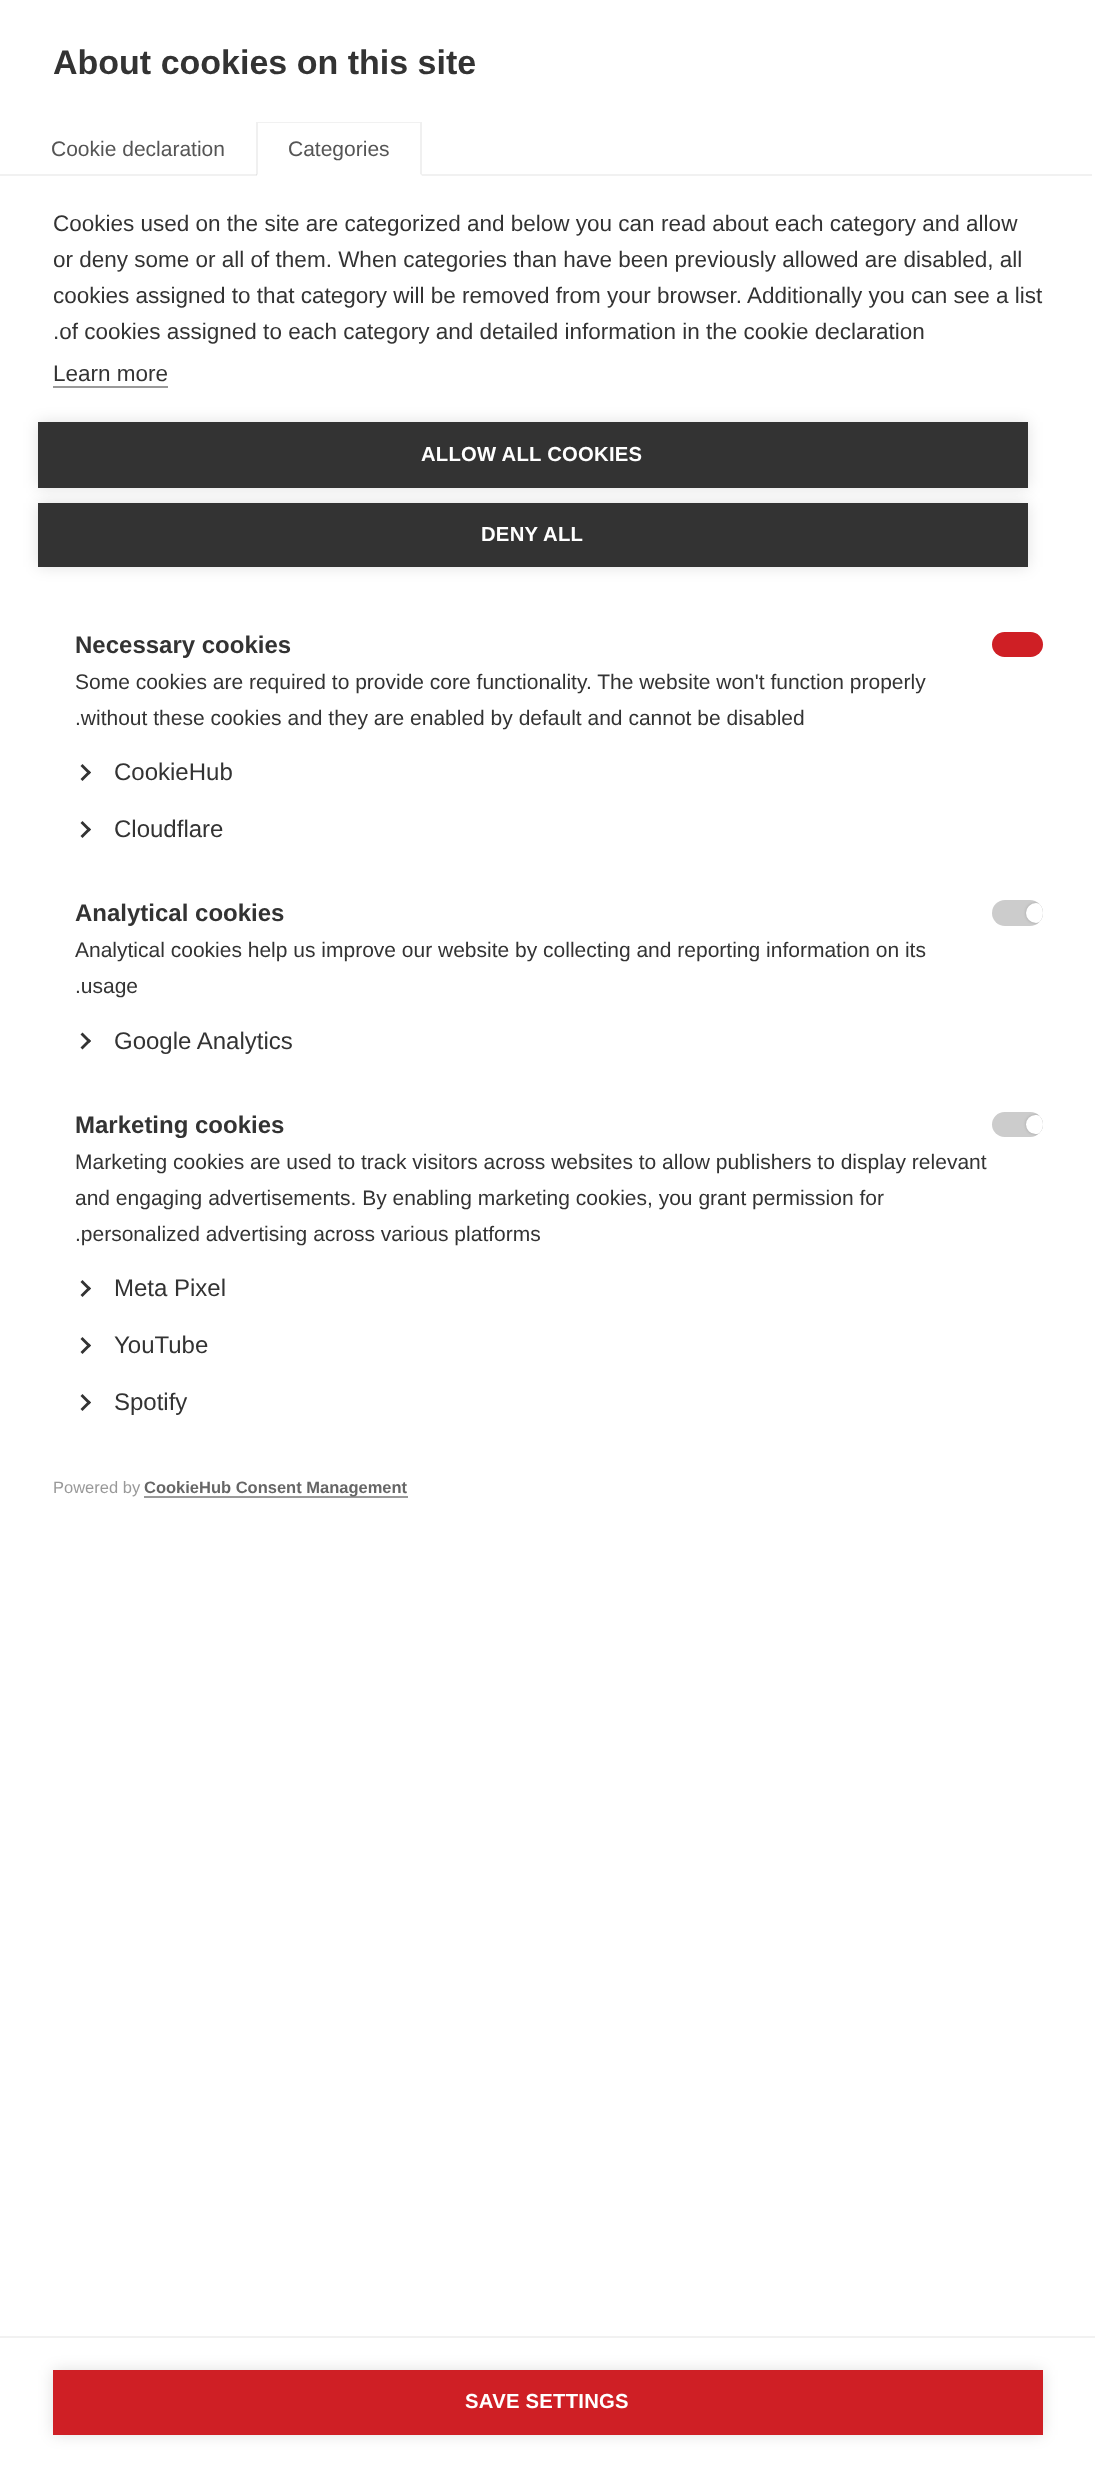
<svg xmlns="http://www.w3.org/2000/svg" width="1095" height="2467" viewBox="0 0 1095 2467">
  <defs>
    <clipPath id="clip1"><rect x="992" y="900" width="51" height="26" rx="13"/></clipPath>
    <clipPath id="clip2"><rect x="992" y="900" width="51" height="26" rx="13"/></clipPath>
    <clipPath id="clip3"><rect x="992" y="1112" width="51" height="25" rx="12.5"/></clipPath>
    <clipPath id="clip4"><rect x="992" y="1112" width="51" height="25" rx="12.5"/></clipPath>
  </defs>
  <rect width="100%" height="100%" fill="rgb(255,255,255)"/>
  <text x="53" y="74" font-family="Liberation Sans" font-size="34" font-weight="bold" fill="rgb(51,51,51)">About cookies on this site</text>
  <rect x="0" y="174" width="1092" height="2" fill="rgb(241,241,241)"/>
  <text x="51" y="156" font-family="Liberation Sans" font-size="21" fill="rgb(85,85,85)">Cookie declaration</text>
  <rect x="257" y="174" width="165" height="2" fill="rgb(255,255,255)"/>
  <path d="M256 122H422L420 123H258Z" fill="rgb(241,241,241)"/>
  <path d="M422 122V176L420 174V123Z" fill="rgba(112,112,112,0.1)"/>
  <path d="M422 176H256L258 174H420Z" fill="rgb(255,255,255)"/>
  <path d="M256 176V122L258 123V174Z" fill="rgba(112,112,112,0.1)"/>
  <text x="288" y="156" font-family="Liberation Sans" font-size="21" fill="rgb(85,85,85)">Categories</text>
  <g font-family="Liberation Sans" font-size="22.5" fill="rgb(51,51,51)">
    <text>
      <tspan x="53" y="231">Cookies used on the site are categorized and below you can read about each category and allow</tspan>
      <tspan x="53" y="267">or deny some or all of them. When categories than have been previously allowed are disabled, all</tspan>
      <tspan x="53" y="303">cookies assigned to that category will be removed from your browser. Additionally you can see a list</tspan>
      <tspan x="53" y="339">.of cookies assigned to each category and detailed information in the cookie declaration</tspan>
      <tspan x="53" y="381">Learn more</tspan>
    </text>
  </g>
  <rect x="53" y="386" width="115" height="2" fill="rgb(153,153,153)"/>
  <rect x="38" y="422" width="990" height="66" fill="rgba(0,0,0,0.12)" filter="blur(7.5px)"/>
  <rect x="38" y="422" width="990" height="66" fill="rgb(51,51,51)"/>
  <text x="421" y="461" font-family="Liberation Sans" font-size="20.25" font-weight="bold" letter-spacing="0.25" fill="rgb(255,255,255)">ALLOW ALL COOKIES</text>
  <rect x="38" y="503" width="990" height="64" fill="rgba(0,0,0,0.12)" filter="blur(7.5px)"/>
  <rect x="38" y="503" width="990" height="64" fill="rgb(51,51,51)"/>
  <text x="481" y="541" font-family="Liberation Sans" font-size="20.25" font-weight="bold" letter-spacing="0.25" fill="rgb(255,255,255)">DENY ALL</text>
  <text x="75" y="653" font-family="Liberation Sans" font-size="24" font-weight="bold" fill="rgb(51,51,51)">Necessary cookies</text>
  <g font-family="Liberation Sans" font-size="21" fill="rgb(51,51,51)">
    <text>
      <tspan x="75" y="689">Some cookies are required to provide core functionality. The website won't function properly</tspan>
      <tspan x="75" y="725">.without these cookies and they are enabled by default and cannot be disabled</tspan>
    </text>
  </g>
  <path d="M80.5 766L82.5 764L91 772.5L89 774.5Z" fill="rgb(51,51,51)"/>
  <path d="M80.5 779L89 770.5L91 772.5L82.5 781ZM80.5 823L82.5 821L91 829.5L89 831.5Z" fill="rgb(51,51,51)"/>
  <text x="114" y="780" font-family="Liberation Sans" font-size="24" fill="rgb(51,51,51)">CookieHub</text>
  <path d="M80.5 836L89 827.5L91 829.5L82.5 838Z" fill="rgb(51,51,51)"/>
  <text x="114" y="837" font-family="Liberation Sans" font-size="24" fill="rgb(51,51,51)">Cloudflare</text>
  <rect x="992" y="632" width="51" height="25" rx="12.5" fill="rgb(207,31,37)"/>
  <text x="75" y="921" font-family="Liberation Sans" font-size="24" font-weight="bold" fill="rgb(51,51,51)">Analytical cookies</text>
  <g font-family="Liberation Sans" font-size="21" fill="rgb(51,51,51)">
    <text>
      <tspan x="75" y="957">Analytical cookies help us improve our website by collecting and reporting information on its</tspan>
      <tspan x="75" y="993">.usage</tspan>
    </text>
  </g>
  <path d="M80.5 1034.5L82.5 1032.5L91 1041L89 1043Z" fill="rgb(51,51,51)"/>
  <path d="M80.5 1047.5L89 1039L91 1041L82.5 1049.5Z" fill="rgb(51,51,51)"/>
  <text x="114" y="1049" font-family="Liberation Sans" font-size="24" fill="rgb(51,51,51)">Google Analytics</text>
  <rect x="992" y="900" width="51" height="26" rx="13" fill="rgb(204,204,204)"/>
  <g clip-path="url(#clip1)">
    <rect x="1026" y="903" width="20" height="20" rx="10" fill="rgba(0,0,0,0.2)" filter="blur(1.5px)"/>
  </g>
  <g clip-path="url(#clip2)">
    <circle cx="1036" cy="913" r="10" fill="rgb(255,255,255)"/>
  </g>
  <text x="75" y="1133" font-family="Liberation Sans" font-size="24" font-weight="bold" fill="rgb(51,51,51)">Marketing cookies</text>
  <g font-family="Liberation Sans" font-size="21" fill="rgb(51,51,51)">
    <text>
      <tspan x="75" y="1169">Marketing cookies are used to track visitors across websites to allow publishers to display relevant</tspan>
      <tspan x="75" y="1205">and engaging advertisements. By enabling marketing cookies, you grant permission for</tspan>
      <tspan x="75" y="1241">.personalized advertising across various platforms</tspan>
    </text>
  </g>
  <path d="M80.5 1282L82.5 1280L91 1288.5L89 1290.5Z" fill="rgb(51,51,51)"/>
  <path d="M80.5 1295L89 1286.5L91 1288.5L82.5 1297ZM80.5 1339L82.5 1337L91 1345.5L89 1347.5Z" fill="rgb(51,51,51)"/>
  <text x="114" y="1296" font-family="Liberation Sans" font-size="24" fill="rgb(51,51,51)">Meta Pixel</text>
  <path d="M80.5 1352L89 1343.5L91 1345.5L82.5 1354ZM80.5 1396L82.5 1394L91 1402.5L89 1404.5Z" fill="rgb(51,51,51)"/>
  <text x="114" y="1353" font-family="Liberation Sans" font-size="24" fill="rgb(51,51,51)">YouTube</text>
  <path d="M80.5 1409L89 1400.5L91 1402.5L82.5 1411Z" fill="rgb(51,51,51)"/>
  <text x="114" y="1410" font-family="Liberation Sans" font-size="24" fill="rgb(51,51,51)">Spotify</text>
  <rect x="992" y="1112" width="51" height="25" rx="12.5" fill="rgb(204,204,204)"/>
  <g clip-path="url(#clip3)">
    <rect x="1026" y="1115" width="20" height="19" rx="9.5" fill="rgba(0,0,0,0.2)" filter="blur(1.5px)"/>
  </g>
  <g clip-path="url(#clip4)">
    <rect x="1026" y="1115" width="20" height="19" rx="9.5" fill="rgb(255,255,255)"/>
  </g>
  <text x="53" y="1493" font-family="Liberation Sans" font-size="16.5" fill="rgb(153,153,153)">Powered by</text>
  <rect x="144" y="1496" width="264" height="2" fill="rgb(153,153,153)"/>
  <text x="144" y="1493" font-family="Liberation Sans" font-size="16.5" font-weight="bold" fill="rgb(102,102,102)">CookieHub Consent Management</text>
  <rect x="0" y="2336" width="1095" height="2" fill="rgb(241,241,241)"/>
  <rect x="53" y="2370" width="990" height="65" fill="rgba(0,0,0,0.12)" filter="blur(7.5px)"/>
  <rect x="53" y="2370" width="990" height="65" fill="rgb(207,31,37)"/>
  <text x="465" y="2408" font-family="Liberation Sans" font-size="20.25" font-weight="bold" letter-spacing="0.25" fill="rgb(255,255,255)">SAVE SETTINGS</text>
</svg>
